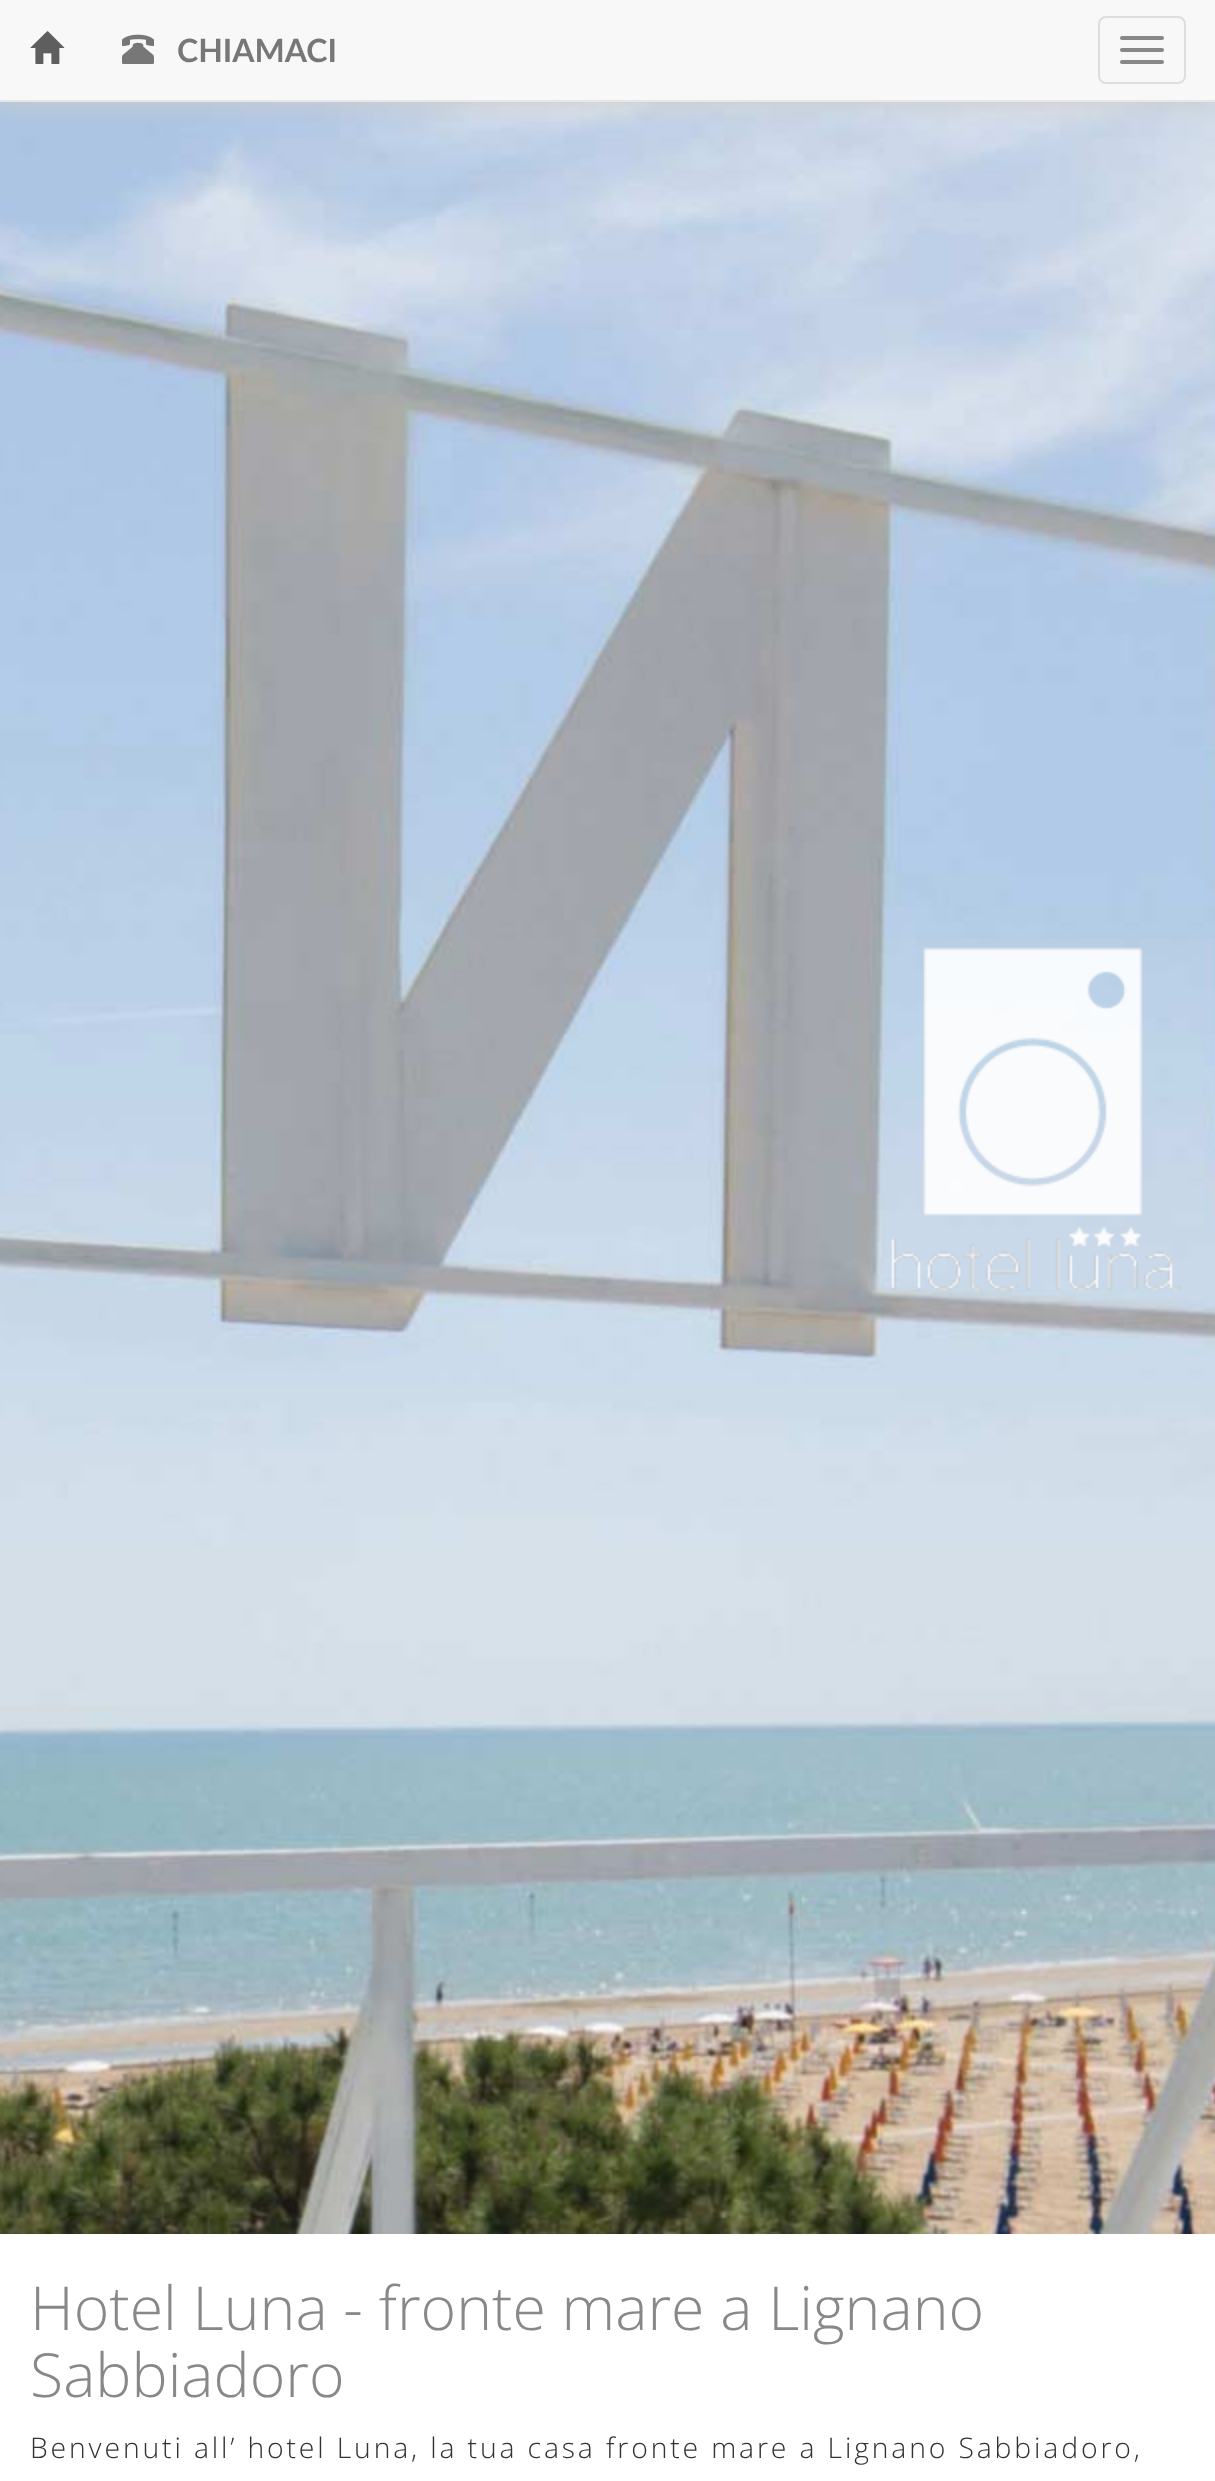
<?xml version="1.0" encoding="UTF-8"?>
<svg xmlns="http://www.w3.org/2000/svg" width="1215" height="2481">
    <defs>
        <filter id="blur1" x="-50%" y="-200%" width="200%" height="500%"><feGaussianBlur stdDeviation="12"/></filter>
    </defs>
    <rect width="100%" height="100%" fill="#FFFFFF"/>
    <image x="0" y="102" width="1215" height="2132" href="img_03.png"/>
    <rect x="0" y="2" width="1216" height="102" fill="#CCCCCC" filter="url(#blur1)"/>
    <rect x="0" y="0" width="1215" height="100" fill="#F8F8F8"/>
    <rect x="0" y="100" width="1215" height="2" fill="#E7E7E7"/>
    <image x="30" y="31" width="35" height="33" href="img_01.png"/>
    <image x="122" y="34" width="32" height="30" href="img_02.png"/>
    <text x="177" y="62" font-family="Lato" font-size="32" font-weight="700" fill="#777777">CHIAMACI</text>
    <rect x="1099" y="17" width="86" height="66" rx="7" fill="none" stroke="#DDDDDD" stroke-width="2"/>
    <rect x="1120" y="36" width="44" height="4" rx="2" fill="#888888"/>
    <rect x="1120" y="48" width="44" height="4" rx="2" fill="#888888"/>
    <rect x="1120" y="60" width="44" height="4" rx="2" fill="#888888"/>
    <image x="891" y="947" width="290" height="344" href="img_04.png"/>
    <text font-family="Open Sans" font-size="60.75" font-weight="300" fill="#888888">
        <tspan x="30" y="2330">Hotel Luna - fronte mare a Lignano</tspan>
        <tspan x="30" y="2397">Sabbiadoro</tspan>
    </text>
    <text x="30" y="2458" font-family="Open Sans" font-size="28.35" font-weight="300" letter-spacing="2.85" fill="#333333">Benvenuti all’ hotel Luna, la tua casa fronte mare a Lignano Sabbiadoro,</text>
</svg>
